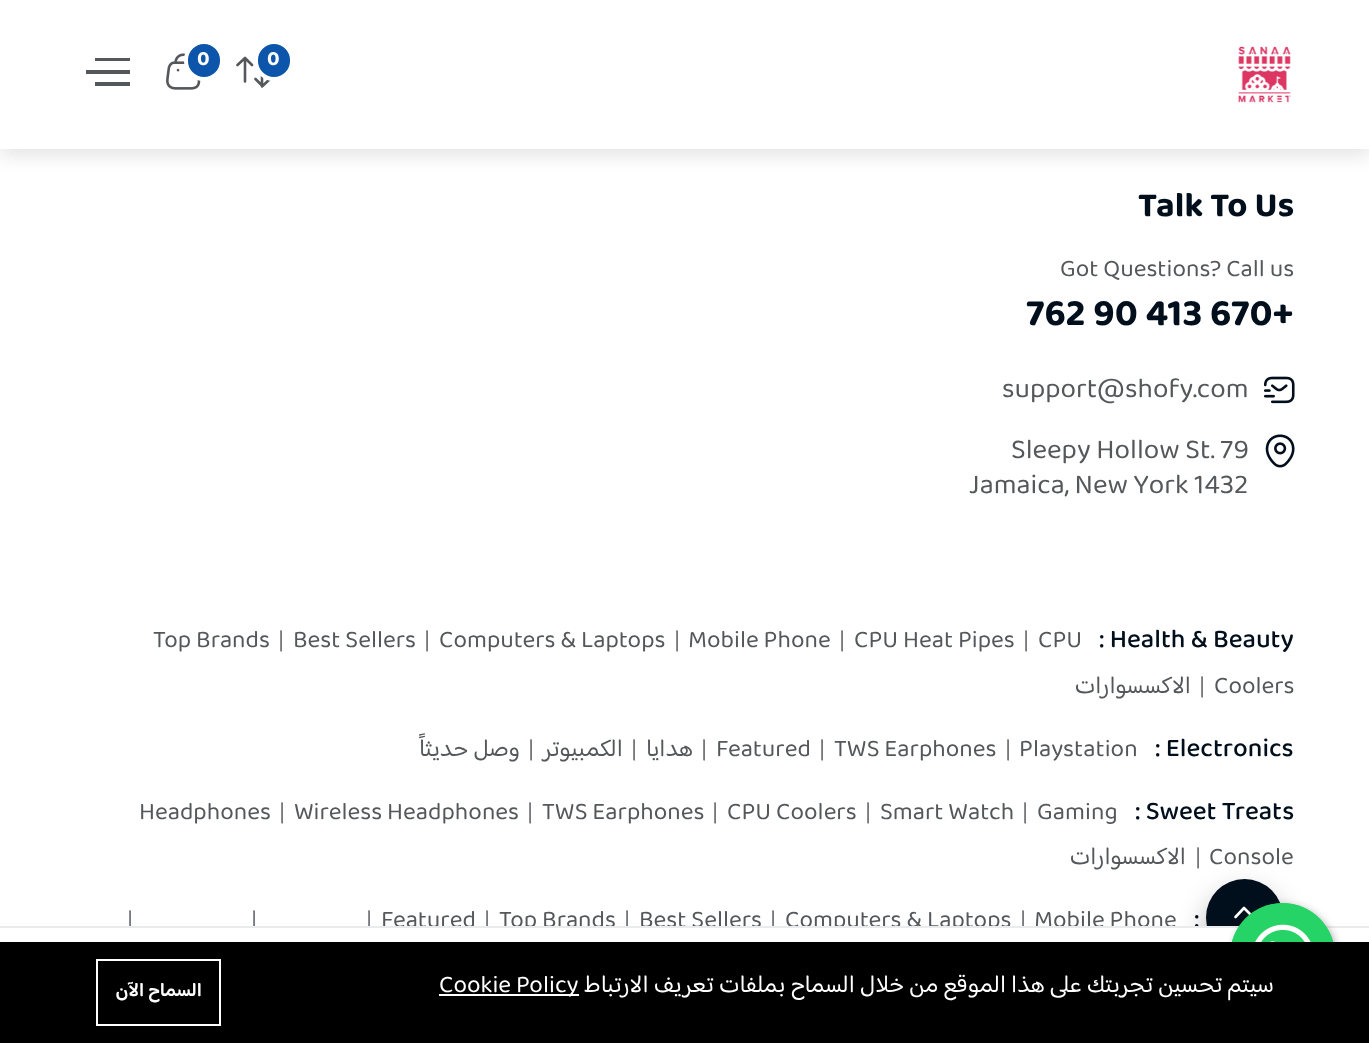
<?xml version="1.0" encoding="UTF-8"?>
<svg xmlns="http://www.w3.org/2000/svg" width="1369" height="1043">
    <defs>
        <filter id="blur1" x="-50%" y="-200%" width="200%" height="500%"><feGaussianBlur stdDeviation="9"/></filter>
        <filter id="blur2" x="-50%" y="-200%" width="200%" height="500%"><feGaussianBlur stdDeviation="14"/></filter>
        <filter id="blur3" x="-50%" y="-200%" width="200%" height="500%"><feGaussianBlur stdDeviation="3.5"/></filter>
    </defs>
    <rect width="100%" height="100%" fill="#FFFFFF"/>
    <rect x="0" y="7" width="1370" height="149" fill="#03041C" fill-opacity="0.1" filter="url(#blur1)"/>
    <rect x="0" y="0" width="1369" height="149" fill="#FFFFFF"/>
    <rect x="95" y="58" width="35" height="3" fill="#55585B"/>
    <rect x="86" y="70" width="44" height="4" fill="#55585B"/>
    <rect x="95" y="82" width="35" height="4" fill="#55585B"/>
    <image x="166" y="53" width="35" height="37" href="img_01.png"/>
    <rect x="186" y="42" width="36" height="37" rx="18" fill="#0C55AA" stroke="#FFFFFF" stroke-width="4"/>
    <text x="197" y="65" font-family="'Baloo Bhaijaan 2'" font-size="21" font-weight="700" fill="#FFFFFF">0</text>
    <path d="M 262 86.5 V 62.5 M 270 79 L 262.5 86 L 255.5 79 M 245 58 V 81.5 M 237.5 65 L 245 58 L 252 65" fill="none" stroke="#55585B" stroke-width="2.6" stroke-linecap="round" stroke-linejoin="round"/>
    <rect x="256" y="42" width="36" height="37" rx="18" fill="#0C55AA" stroke="#FFFFFF" stroke-width="4"/>
    <text x="267" y="65" font-family="'Baloo Bhaijaan 2'" font-size="21" font-weight="700" fill="#FFFFFF">0</text>
    <image x="1238" y="46" width="53" height="57" href="img_02.png"/>
    <text x="1138" y="216" font-family="'Baloo Bhaijaan 2'" font-size="35" font-weight="700" fill="#010F1C">Talk To Us</text>
    <text x="1060" y="276" font-family="'Baloo Bhaijaan 2'" font-size="24.5" fill="#55585B">Got Questions? Call us</text>
    <text x="1026" y="325" font-family="'Baloo Bhaijaan 2'" font-size="38.5" font-weight="700" fill="#010F1C">762 90 413 670+</text>
    <text x="1002" y="397" font-family="'Baloo Bhaijaan 2'" font-size="28" fill="#55585B">support@shofy.com</text>
    <image x="1264" y="376" width="31" height="28" href="img_03.png"/>
    <text x="1011" y="458" font-family="'Baloo Bhaijaan 2'" font-size="28" fill="#55585B">Sleepy Hollow St. 79</text>
    <text x="969" y="493" font-family="'Baloo Bhaijaan 2'" font-size="28" fill="#55585B">Jamaica, New York 1432</text>
    <image x="1265" y="434" width="30" height="34" href="img_04.png"/>
    <text x="153" y="647" font-family="'Baloo Bhaijaan 2'" font-size="24.5" fill="#55585B">Top Brands</text>
    <text x="278" y="647" font-family="'Baloo Bhaijaan 2'" font-size="24.5" fill="#747679">|</text>
    <text x="293" y="647" font-family="'Baloo Bhaijaan 2'" font-size="24.5" fill="#55585B">Best Sellers</text>
    <text x="424" y="647" font-family="'Baloo Bhaijaan 2'" font-size="24.5" fill="#747679">|</text>
    <text x="439" y="647" font-family="'Baloo Bhaijaan 2'" font-size="24.5" fill="#55585B">Computers &amp; Laptops</text>
    <text x="674" y="647" font-family="'Baloo Bhaijaan 2'" font-size="24.5" fill="#747679">|</text>
    <text x="688" y="647" font-family="'Baloo Bhaijaan 2'" font-size="24.5" fill="#55585B">Mobile Phone</text>
    <text x="839" y="647" font-family="'Baloo Bhaijaan 2'" font-size="24.5" fill="#747679">|</text>
    <text x="854" y="647" font-family="'Baloo Bhaijaan 2'" font-size="24.5" fill="#55585B">CPU Heat Pipes</text>
    <text x="1023" y="647" font-family="'Baloo Bhaijaan 2'" font-size="24.5" fill="#747679">|</text>
    <text x="1038" y="647" font-family="'Baloo Bhaijaan 2'" font-size="24.5" fill="#55585B">CPU</text>
    <text x="1099" y="647" font-family="'Baloo Bhaijaan 2'" font-size="26.25" font-weight="500" fill="#010F1C">: Health &amp; Beauty</text>
    <text x="1191" y="693" font-family="'Baloo Bhaijaan 2'" font-size="24.5" direction="rtl" fill="#55585B">الاكسسوارات</text>
    <text x="1199" y="693" font-family="'Baloo Bhaijaan 2'" font-size="24.5" fill="#747679">|</text>
    <text x="1214" y="693" font-family="'Baloo Bhaijaan 2'" font-size="24.5" fill="#55585B">Coolers</text>
    <text x="520" y="756" font-family="'Baloo Bhaijaan 2'" font-size="24.5" direction="rtl" fill="#55585B">وصل حديثاً</text>
    <text x="528" y="756" font-family="'Baloo Bhaijaan 2'" font-size="24.5" fill="#747679">|</text>
    <text x="623" y="756" font-family="'Baloo Bhaijaan 2'" font-size="24.5" direction="rtl" fill="#55585B">الكمبيوتر</text>
    <text x="631" y="756" font-family="'Baloo Bhaijaan 2'" font-size="24.5" fill="#747679">|</text>
    <text x="693" y="756" font-family="'Baloo Bhaijaan 2'" font-size="24.5" direction="rtl" fill="#55585B">هدايا</text>
    <text x="701" y="756" font-family="'Baloo Bhaijaan 2'" font-size="24.5" fill="#747679">|</text>
    <text x="716" y="756" font-family="'Baloo Bhaijaan 2'" font-size="24.5" fill="#55585B">Featured</text>
    <text x="819" y="756" font-family="'Baloo Bhaijaan 2'" font-size="24.5" fill="#747679">|</text>
    <text x="834" y="756" font-family="'Baloo Bhaijaan 2'" font-size="24.5" fill="#55585B">TWS Earphones</text>
    <text x="1005" y="756" font-family="'Baloo Bhaijaan 2'" font-size="24.5" fill="#747679">|</text>
    <text x="1019" y="756" font-family="'Baloo Bhaijaan 2'" font-size="24.5" fill="#55585B">Playstation</text>
    <text x="1155" y="756" font-family="'Baloo Bhaijaan 2'" font-size="26.25" font-weight="500" fill="#010F1C">: Electronics</text>
    <text x="139" y="819" font-family="'Baloo Bhaijaan 2'" font-size="24.5" fill="#55585B">Headphones</text>
    <text x="279" y="819" font-family="'Baloo Bhaijaan 2'" font-size="24.5" fill="#747679">|</text>
    <text x="294" y="819" font-family="'Baloo Bhaijaan 2'" font-size="24.5" fill="#55585B">Wireless Headphones</text>
    <text x="527" y="819" font-family="'Baloo Bhaijaan 2'" font-size="24.5" fill="#747679">|</text>
    <text x="542" y="819" font-family="'Baloo Bhaijaan 2'" font-size="24.5" fill="#55585B">TWS Earphones</text>
    <text x="712" y="819" font-family="'Baloo Bhaijaan 2'" font-size="24.5" fill="#747679">|</text>
    <text x="727" y="819" font-family="'Baloo Bhaijaan 2'" font-size="24.5" fill="#55585B">CPU Coolers</text>
    <text x="865" y="819" font-family="'Baloo Bhaijaan 2'" font-size="24.5" fill="#747679">|</text>
    <text x="880" y="819" font-family="'Baloo Bhaijaan 2'" font-size="24.5" fill="#55585B">Smart Watch</text>
    <text x="1022" y="819" font-family="'Baloo Bhaijaan 2'" font-size="24.5" fill="#747679">|</text>
    <text x="1037" y="819" font-family="'Baloo Bhaijaan 2'" font-size="24.5" fill="#55585B">Gaming</text>
    <text x="1135" y="819" font-family="'Baloo Bhaijaan 2'" font-size="26.25" font-weight="500" fill="#010F1C">: Sweet Treats</text>
    <text x="1186" y="864" font-family="'Baloo Bhaijaan 2'" font-size="24.5" direction="rtl" fill="#55585B">الاكسسوارات</text>
    <text x="1195" y="864" font-family="'Baloo Bhaijaan 2'" font-size="24.5" fill="#747679">|</text>
    <text x="1209" y="864" font-family="'Baloo Bhaijaan 2'" font-size="24.5" fill="#55585B">Console</text>
    <text x="127" y="927" font-family="'Baloo Bhaijaan 2'" font-size="24.5" fill="#747679">|</text>
    <text x="251" y="927" font-family="'Baloo Bhaijaan 2'" font-size="24.5" fill="#747679">|</text>
    <text x="366" y="927" font-family="'Baloo Bhaijaan 2'" font-size="24.5" fill="#747679">|</text>
    <text x="381" y="927" font-family="'Baloo Bhaijaan 2'" font-size="24.5" fill="#55585B">Featured</text>
    <text x="484" y="927" font-family="'Baloo Bhaijaan 2'" font-size="24.5" fill="#747679">|</text>
    <text x="499" y="927" font-family="'Baloo Bhaijaan 2'" font-size="24.5" fill="#55585B">Top Brands</text>
    <text x="624" y="927" font-family="'Baloo Bhaijaan 2'" font-size="24.5" fill="#747679">|</text>
    <text x="639" y="927" font-family="'Baloo Bhaijaan 2'" font-size="24.5" fill="#55585B">Best Sellers</text>
    <text x="770" y="927" font-family="'Baloo Bhaijaan 2'" font-size="24.5" fill="#747679">|</text>
    <text x="785" y="927" font-family="'Baloo Bhaijaan 2'" font-size="24.5" fill="#55585B">Computers &amp; Laptops</text>
    <text x="1020" y="927" font-family="'Baloo Bhaijaan 2'" font-size="24.5" fill="#747679">|</text>
    <text x="1034" y="927" font-family="'Baloo Bhaijaan 2'" font-size="24.5" fill="#55585B">Mobile Phone</text>
    <text x="1194" y="927" font-family="'Baloo Bhaijaan 2'" font-size="26.25" font-weight="500" fill="#010F1C">:</text>
    <rect x="1206" y="893" width="77" height="77" rx="38.5" fill="#03041C" fill-opacity="0.3" filter="url(#blur2)"/>
    <circle cx="1244.5" cy="917.5" r="38.5" fill="#010F1C"/>
    <path d="M 1253 917 L 1244 908 L 1235.5 917" fill="none" stroke="#FFFFFF" stroke-width="2.6" stroke-linecap="round" stroke-linejoin="round"/>
    <rect x="129" y="928" width="1177" height="14" fill="#FFFFFF"/>
    <rect x="0" y="926" width="1369" height="2" fill="#EAEBED"/>
    <rect x="1232" y="905" width="105" height="105" rx="52.5" fill="#3C3C3C" fill-opacity="0.4" filter="url(#blur3)"/>
    <circle cx="1282.5" cy="955.5" r="52.5" fill="#25D366"/>
    <image x="1232" y="903" width="101" height="39" href="img_05.png"/>
    <rect x="0" y="942" width="1369" height="101" fill="#000000"/>
    <rect x="97" y="960" width="123" height="65" fill="none" stroke="#FFFFFF" stroke-width="2"/>
    <text x="202" y="996" font-family="'Baloo Bhaijaan 2'" font-size="19.25" font-weight="600" direction="rtl" fill="#FFFFFF">السماح الآن</text>
    <rect x="439" y="994" width="140" height="2" fill="#FFFFFF"/>
    <text x="439" y="992" font-family="'Baloo Bhaijaan 2'" font-size="24.5" fill="#FFFFFF">Cookie Policy</text>
    <text x="1274" y="992" font-family="'Baloo Bhaijaan 2'" font-size="24.5" direction="rtl" fill="#FFFFFF">سيتم تحسين تجربتك على هذا الموقع من خلال السماح بملفات تعريف الارتباط</text>
</svg>
